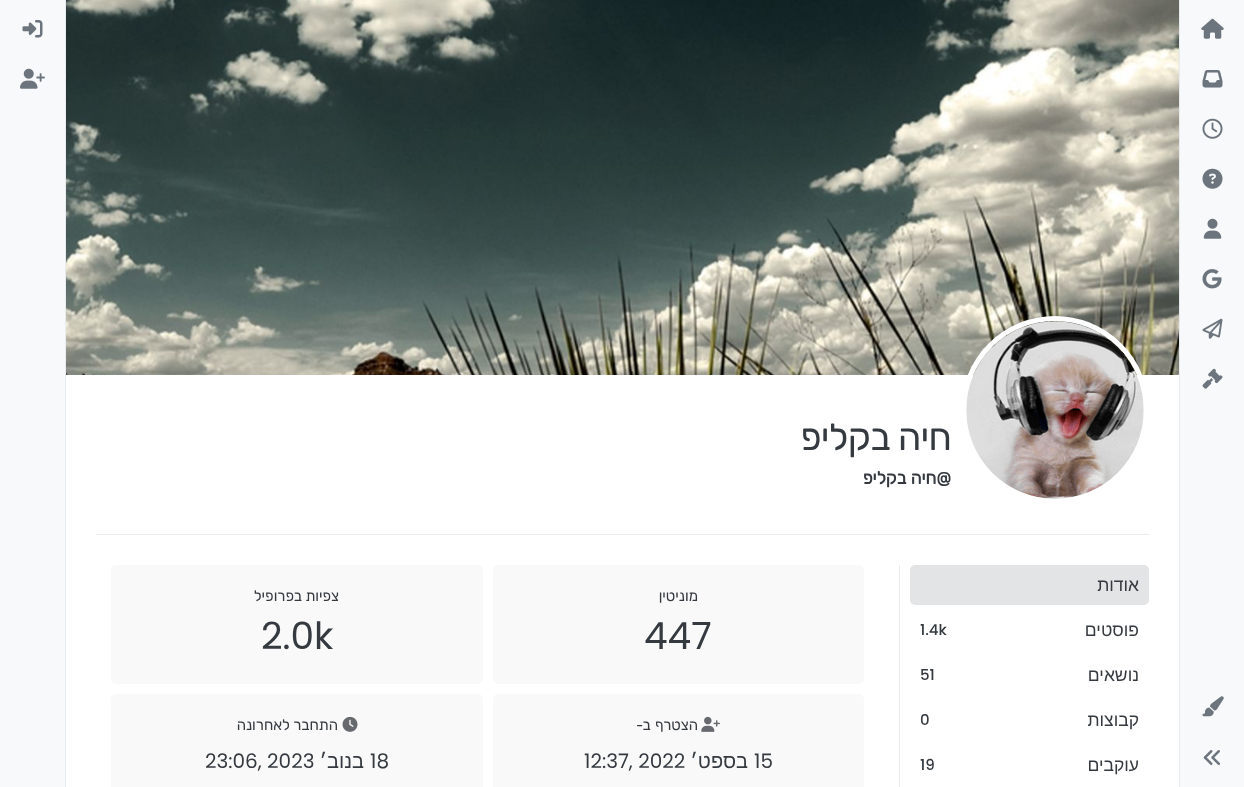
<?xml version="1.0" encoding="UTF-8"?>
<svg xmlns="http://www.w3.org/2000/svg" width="1244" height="787">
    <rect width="100%" height="100%" fill="#FFFFFF"/>
    <rect x="1180" y="0" width="64" height="787" fill="#F8F9FA"/>
    <rect x="1179" y="0" width="1" height="787" fill="#E9ECEF"/>
    <image x="1201" y="18" width="23" height="21" href="img_01.png"/>
    <image x="1202" y="70" width="21" height="18" href="img_02.png"/>
    <image x="1202" y="118" width="21" height="21" href="img_03.png"/>
    <image x="1202" y="168" width="21" height="21" href="img_04.png"/>
    <image x="1203" y="218" width="19" height="21" href="img_05.png"/>
    <image x="1202" y="269" width="20" height="20" href="img_06.png"/>
    <image x="1202" y="318" width="21" height="21" href="img_07.png"/>
    <image x="1202" y="368" width="21" height="21" href="img_08.png"/>
    <image x="1202" y="696" width="22" height="21" href="img_09.png"/>
    <image x="1203" y="750" width="17" height="15" href="img_10.png"/>
    <image x="66" y="0" width="1113" height="375" href="img_11.png"/>
    <rect x="96" y="534" width="1053" height="1" fill="#E9ECEF"/>
    <circle cx="1055" cy="410" r="91.5" fill="none" stroke="#FFFFFF" stroke-width="5"/>
    <image x="966" y="321" width="178" height="178" href="img_12.png"/>
    <text x="951" y="450" font-family="Rubik" font-size="37.5" font-weight="300" letter-spacing="-0.75" direction="rtl" fill="#343A40">חיה בקליפ</text>
    <text x="951" y="484" font-family="Rubik" font-size="17.5" font-weight="700" direction="rtl" fill="#343A40">@חיה בקליפ</text>
    <rect x="899" y="565" width="1" height="222" fill="#E9ECEF"/>
    <rect x="910" y="565" width="239" height="40" rx="5" fill="#E3E4E5"/>
    <text x="1139" y="591" font-family="Liberation Sans" font-size="17.5" direction="rtl" fill="#343A40">אודות</text>
    <text x="1139" y="636" font-family="Liberation Sans" font-size="17.5" direction="rtl" fill="#343A40">פוסטים</text>
    <text x="920" y="635" font-family="Poppins" font-size="15" font-weight="500" fill="#343A40">1.4k</text>
    <text x="1139" y="681" font-family="Liberation Sans" font-size="17.5" direction="rtl" fill="#343A40">נושאים</text>
    <text x="920" y="680" font-family="Poppins" font-size="15" font-weight="500" fill="#343A40">51</text>
    <text x="1139" y="726" font-family="Liberation Sans" font-size="17.5" direction="rtl" fill="#343A40">קבוצות</text>
    <text x="920" y="725" font-family="Poppins" font-size="15" font-weight="500" fill="#343A40">0</text>
    <text x="1139" y="771" font-family="Liberation Sans" font-size="17.5" direction="rtl" fill="#343A40">עוקבים</text>
    <text x="920" y="770" font-family="Poppins" font-size="15" font-weight="500" fill="#343A40">19</text>
    <rect x="493" y="565" width="371" height="119" rx="5" fill="#F9F9F9"/>
    <text x="698" y="601" font-family="Rubik" font-size="15" font-weight="300" direction="rtl" fill="#343A40">מוניטין</text>
    <text x="644" y="649" font-family="Poppins" font-size="37.5" fill="#343A40">447</text>
    <rect x="111" y="565" width="372" height="119" rx="5" fill="#F9F9F9"/>
    <text x="339" y="601" font-family="Rubik" font-size="15" font-weight="300" direction="rtl" fill="#343A40">צפיות בפרופיל</text>
    <text x="261" y="649" font-family="Poppins" font-size="37.5" fill="#343A40">2.0k</text>
    <rect x="493" y="694" width="371" height="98" rx="5" fill="#F9F9F9"/>
    <image x="701" y="716" width="19" height="16" href="img_13.png"/>
    <text x="698" y="730" word-spacing="1" font-family="Rubik" font-size="15" font-weight="300" direction="rtl" fill="#343A40">הצטרף ב-</text>
    <text x="754" y="768" font-family="Poppins" font-size="20" fill="#343A40">15</text>
    <text x="748" y="768" font-family="Liberation Sans" font-size="20" direction="rtl" fill="#343A40">בספט׳</text>
    <text x="584" y="768" font-family="Poppins" font-size="20" fill="#343A40">12:37, 2022</text>
    <rect x="111" y="694" width="372" height="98" rx="5" fill="#F9F9F9"/>
    <image x="342" y="716" width="16" height="16" href="img_14.png"/>
    <text x="338" y="730" font-family="Rubik" font-size="15" font-weight="300" direction="rtl" fill="#343A40">התחבר לאחרונה</text>
    <text x="370" y="768" font-family="Poppins" font-size="20" fill="#343A40">18</text>
    <text x="364" y="768" font-family="Liberation Sans" font-size="20" direction="rtl" fill="#343A40">בנוב׳</text>
    <text x="205" y="768" font-family="Poppins" font-size="20" fill="#343A40">23:06, 2023</text>
    <rect x="0" y="0" width="65" height="787" fill="#F8F9FA"/>
    <rect x="65" y="0" width="1" height="787" fill="#E9ECEF"/>
    <image x="22" y="20" width="21" height="18" href="img_15.png"/>
    <image x="20" y="68" width="25" height="21" href="img_16.png"/>
</svg>
